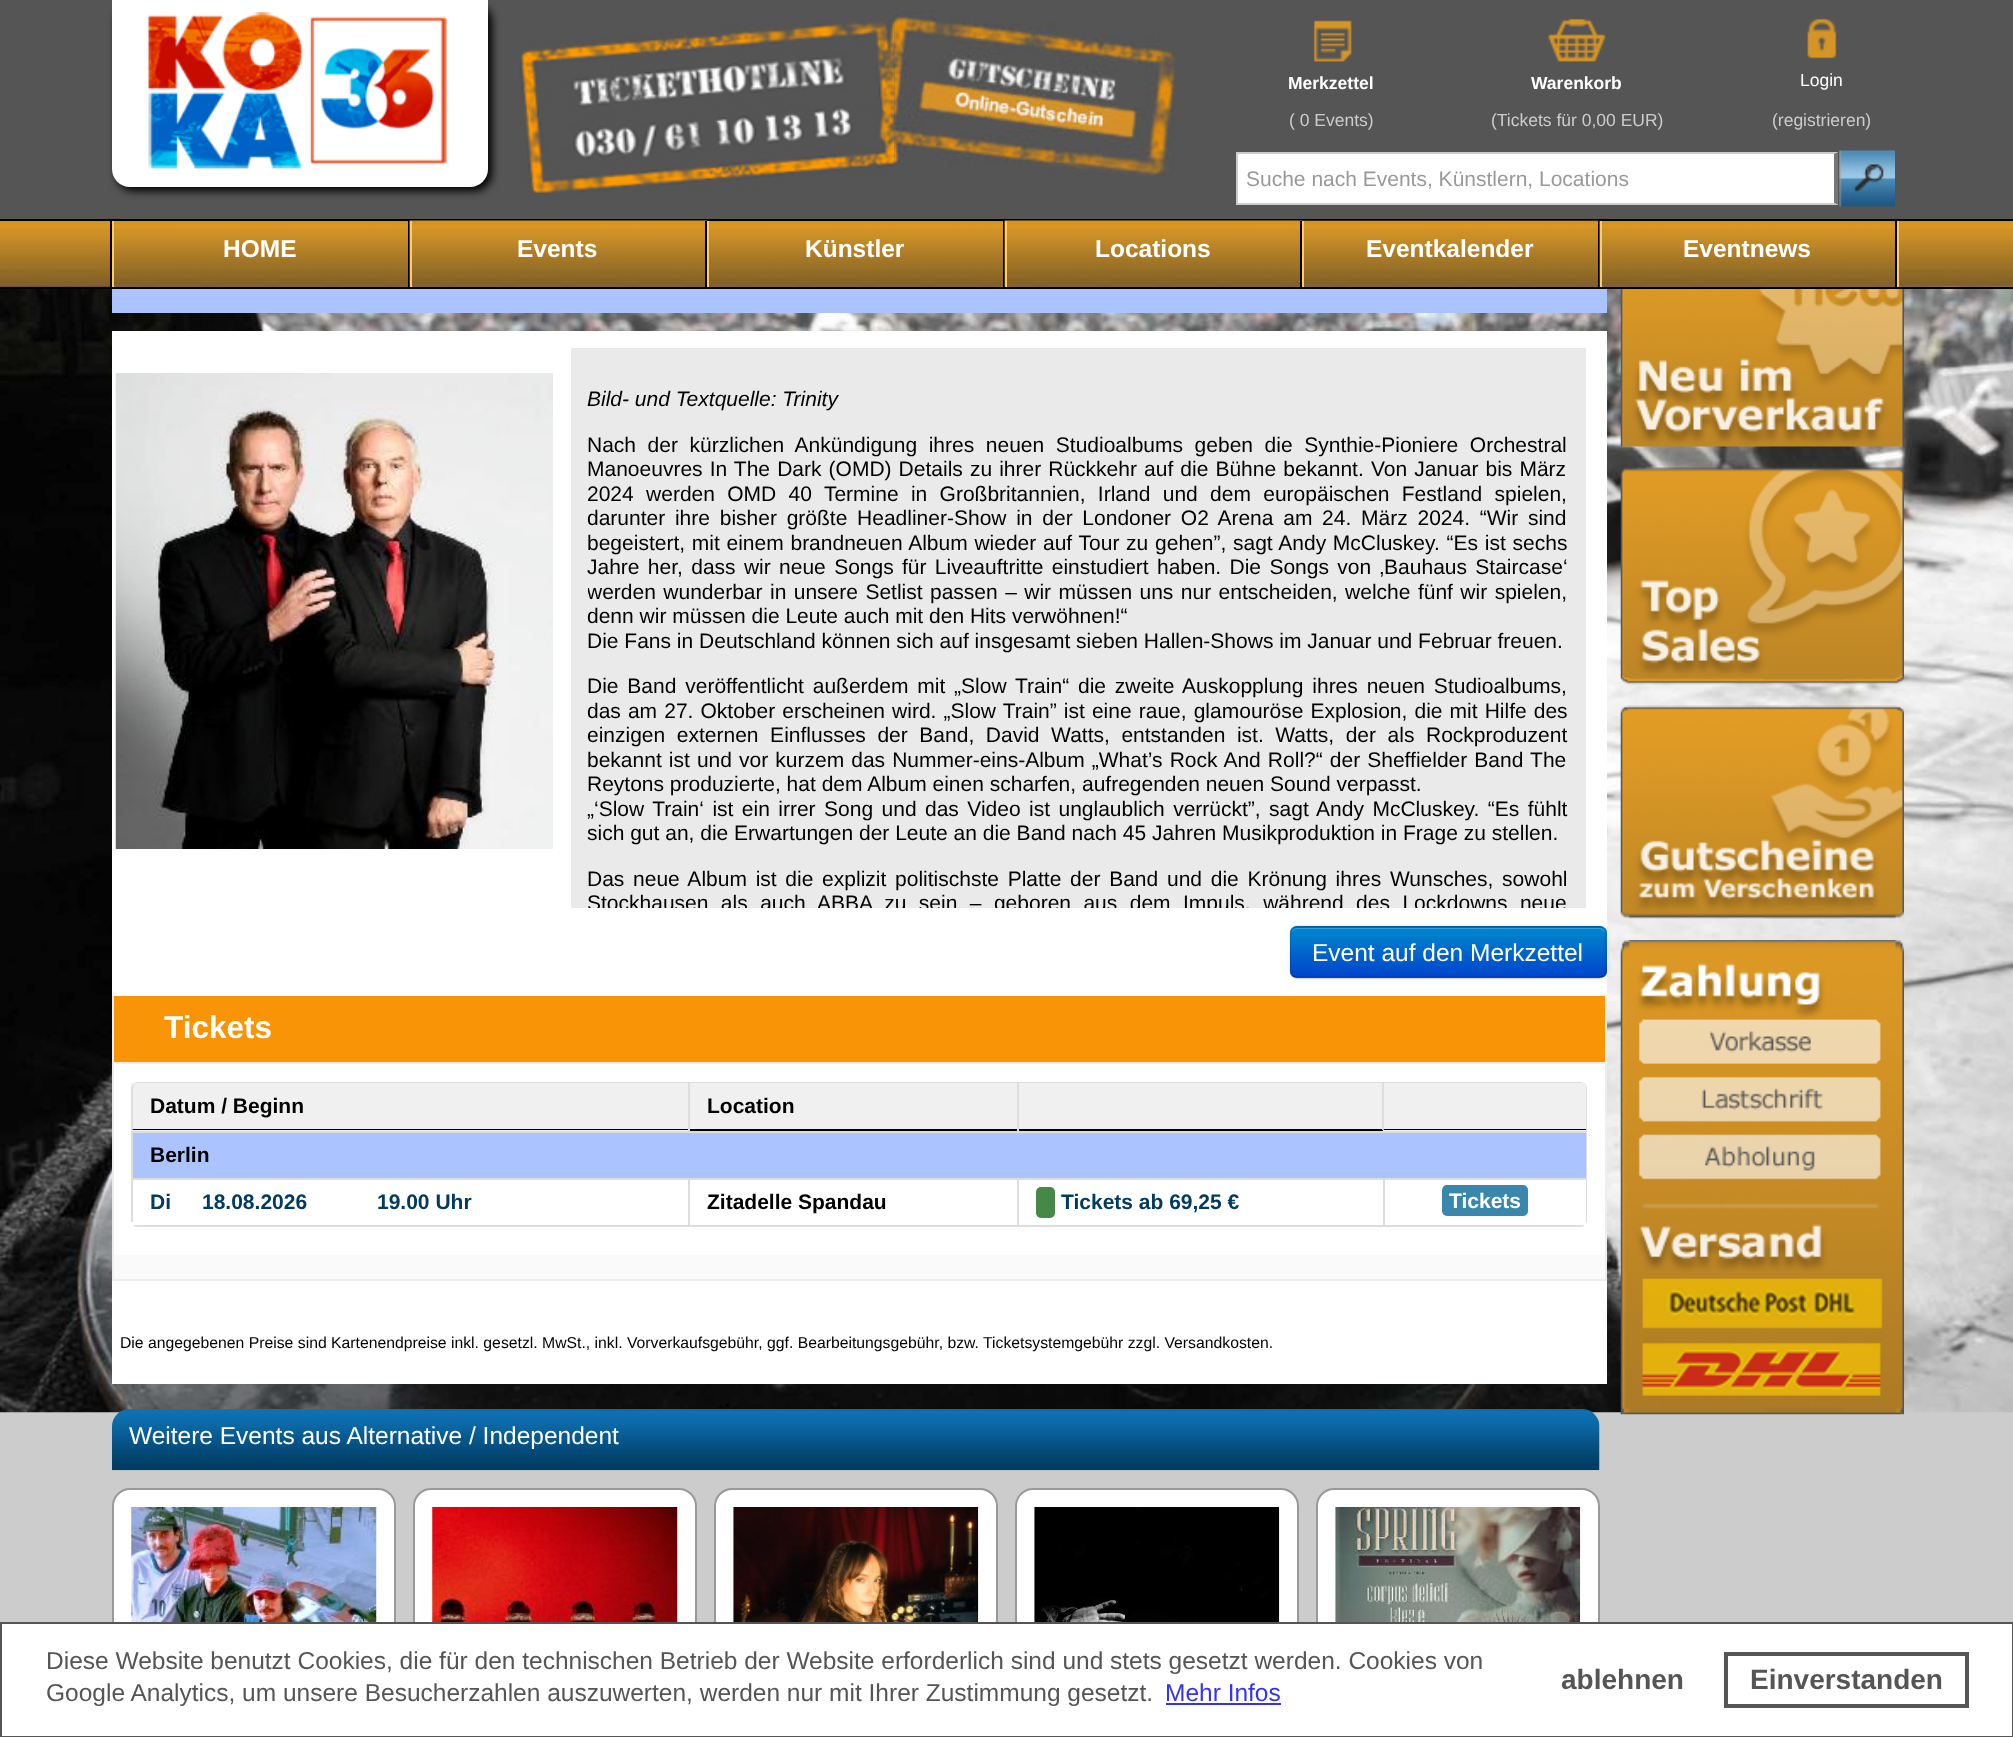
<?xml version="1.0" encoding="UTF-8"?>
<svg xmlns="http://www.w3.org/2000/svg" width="2013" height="1737">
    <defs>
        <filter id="blur1" x="-50%" y="-200%" width="200%" height="500%"><feGaussianBlur stdDeviation="4.5"/></filter>
        <clipPath id="clip1"><rect x="588" y="366" width="980" height="542"/></clipPath>
        <filter id="blur2" x="-50%" y="-200%" width="200%" height="500%"><feGaussianBlur stdDeviation="2"/></filter>
        <clipPath id="clip2"><rect x="1290" y="926" width="317" height="52" rx="7"/></clipPath>
        <linearGradient id="g1" gradientUnits="userSpaceOnUse" x1="1448" y1="928" x2="1448" y2="977"><stop offset="0" stop-color="#0088CC"/><stop offset="1" stop-color="#0044CC"/></linearGradient>
    </defs>
    <rect width="100%" height="100%" fill="#CCCCCC"/>
    <image x="0" y="286" width="2013" height="1127" href="img_01.png"/>
    <rect x="0" y="0" width="2013" height="219" fill="#555555"/>
    <rect x="116" y="4" width="376" height="187" rx="18" fill="#000000" filter="url(#blur1)"/>
    <path d="M 112 0 H 488 V 169 C 488 179 480 187 470 187 H 130 C 120 187 112 179 112 169 Z" fill="#FFFFFF"/>
    <image x="148" y="12" width="299" height="157" href="img_02.png"/>
    <image x="519" y="20" width="376" height="173" href="img_03.png"/>
    <image x="894" y="9" width="281" height="168" href="img_04.png"/>
    <image x="1313" y="20" width="39" height="42" href="img_05.png"/>
    <text x="1288" y="89" font-family="Liberation Sans" font-size="17.5" font-weight="700" fill="#FFFFFF">Merkzettel</text>
    <text x="1289" y="126" font-family="Liberation Sans" font-size="17.5" fill="#CCCCCC">( 0 Events)</text>
    <image x="1548" y="18" width="58" height="44" href="img_06.png"/>
    <text x="1531" y="89" font-family="Liberation Sans" font-size="17.5" font-weight="700" fill="#FFFFFF">Warenkorb</text>
    <text x="1491" y="126" font-family="Liberation Sans" font-size="17.5" fill="#CCCCCC">(Tickets für 0,00 EUR)</text>
    <image x="1807" y="18" width="30" height="41" href="img_07.png"/>
    <text x="1800" y="86" font-family="Liberation Sans" font-size="17.5" fill="#FFFFFF">Login</text>
    <text x="1772" y="126" font-family="Liberation Sans" font-size="17.5" fill="#CCCCCC">(registrieren)</text>
    <rect x="1238" y="152" width="600" height="53" fill="#FFFFFF"/>
    <path d="M 1236 152 H 1838 L 1834 154 H 1237 Z" fill="#CCCCCC"/>
    <path d="M 1838 152 V 205 L 1834 203 V 154 Z" fill="#767676"/>
    <path d="M 1838 205 H 1236 L 1237 203 H 1834 Z" fill="#CCCCCC"/>
    <rect x="1236" y="152" width="2" height="53" fill="#CCCCCC"/>
    <text x="1246" y="186" font-family="Liberation Sans" font-size="21" fill="#999999">Suche nach Events, Künstlern, Locations</text>
    <image x="1839" y="150" width="56" height="57" href="img_08.png"/>
    <image x="1620" y="286" width="284" height="161" href="img_23.png"/>
    <image x="0" y="221" width="2013" height="66" href="img_09.png"/>
    <rect x="0" y="219" width="2013" height="2" fill="#000000"/>
    <rect x="0" y="287" width="2013" height="2" fill="#000000"/>
    <rect x="110" y="221" width="2" height="66" fill="#000000"/>
    <image x="114" y="221" width="294" height="66" href="img_10.png"/>
    <rect x="408" y="221" width="2" height="66" fill="#000000"/>
    <rect x="112" y="221" width="2" height="66" fill="#FFCC66"/>
    <text x="223" y="257" font-family="Liberation Sans" font-size="24.5" font-weight="700" fill="#FFFFFF">HOME</text>
    <image x="409" y="220" width="298" height="67" href="img_11.png"/>
    <rect x="705" y="221" width="2" height="66" fill="#000000"/>
    <rect x="410" y="221" width="2" height="66" fill="#FFCC66"/>
    <text x="517" y="257" font-family="Liberation Sans" font-size="24.5" font-weight="700" fill="#FFFFFF">Events</text>
    <image x="709" y="221" width="294" height="66" href="img_12.png"/>
    <rect x="1003" y="221" width="2" height="66" fill="#000000"/>
    <rect x="707" y="221" width="2" height="66" fill="#FFCC66"/>
    <text x="805" y="257" font-family="Liberation Sans" font-size="24.5" font-weight="700" fill="#FFFFFF">Künstler</text>
    <image x="1004" y="220" width="298" height="67" href="img_13.png"/>
    <rect x="1300" y="221" width="2" height="66" fill="#000000"/>
    <rect x="1005" y="221" width="2" height="66" fill="#FFCC66"/>
    <text x="1095" y="257" font-family="Liberation Sans" font-size="24.5" font-weight="700" fill="#FFFFFF">Locations</text>
    <image x="1302" y="220" width="298" height="67" href="img_14.png"/>
    <rect x="1598" y="221" width="2" height="66" fill="#000000"/>
    <rect x="1302" y="221" width="2" height="66" fill="#FFCC66"/>
    <text x="1366" y="257" font-family="Liberation Sans" font-size="24.5" font-weight="700" fill="#FFFFFF">Eventkalender</text>
    <image x="1599" y="221" width="296" height="66" href="img_15.png"/>
    <rect x="1895" y="221" width="2" height="66" fill="#000000"/>
    <rect x="1600" y="221" width="2" height="66" fill="#FFCC66"/>
    <text x="1683" y="257" font-family="Liberation Sans" font-size="24.5" font-weight="700" fill="#FFFFFF">Eventnews</text>
    <rect x="1897" y="221" width="2" height="66" fill="#FFCC66"/>
    <rect x="112" y="289" width="1495" height="24" fill="#ABC4FF"/>
    <rect x="112" y="331" width="1495" height="665" fill="#FFFFFF"/>
    <image x="115" y="373" width="438" height="476" href="img_16.png"/>
    <rect x="571" y="348" width="1015" height="560" fill="#EAEAEA"/>
    <text x="587" y="406" font-family="Liberation Sans" font-size="21" font-style="italic" fill="#000000">Bild- und Textquelle: Trinity</text>
    <text font-family="Liberation Sans" font-size="21" fill="#000000">
        <tspan x="587" y="452" word-spacing="5.75">Nach der kürzlichen Ankündigung ihres neuen Studioalbums geben die Synthie-Pioniere Orchestral</tspan>
        <tspan x="587" y="476" word-spacing="1.25">Manoeuvres In The Dark (OMD) Details zu ihrer Rückkehr auf die Bühne bekannt. Von Januar bis März</tspan>
        <tspan x="587" y="501" word-spacing="6.5">2024 werden OMD 40 Termine in Großbritannien, Irland und dem europäischen Festland spielen,</tspan>
        <tspan x="587" y="525" word-spacing="3.9">darunter ihre bisher größte Headliner-Show in der Londoner O2 Arena am 24. März 2024. “Wir sind</tspan>
        <tspan x="587" y="550" word-spacing="0.9">begeistert, mit einem brandneuen Album wieder auf Tour zu gehen”, sagt Andy McCluskey. “Es ist sechs</tspan>
        <tspan x="587" y="574" word-spacing="2.5">Jahre her, dass wir neue Songs für Liveauftritte einstudiert haben. Die Songs von ‚Bauhaus Staircase‘</tspan>
    </text>
    <g clip-path="url(#clip1)">
        <text x="587" y="599" word-spacing="1.6" font-family="Liberation Sans" font-size="21" fill="#000000">werden wunderbar in unsere Setlist passen – wir müssen uns nur entscheiden, welche fünf wir spielen,</text>
    </g>
    <text font-family="Liberation Sans" font-size="21" fill="#000000">
        <tspan x="587" y="623">denn wir müssen die Leute auch mit den Hits verwöhnen!“</tspan>
        <tspan x="587" y="648">Die Fans in Deutschland können sich auf insgesamt sieben Hallen-Shows im Januar und Februar freuen.</tspan>
    </text>
    <text font-family="Liberation Sans" font-size="21" fill="#000000">
        <tspan x="587" y="693" word-spacing="3">Die Band veröffentlicht außerdem mit „Slow Train“ die zweite Auskopplung ihres neuen Studioalbums,</tspan>
        <tspan x="587" y="718" word-spacing="1.25">das am 27. Oktober erscheinen wird. „Slow Train” ist eine raue, glamouröse Explosion, die mit Hilfe des</tspan>
        <tspan x="587" y="742" word-spacing="5.75">einzigen externen Einflusses der Band, David Watts, entstanden ist. Watts, der als Rockproduzent</tspan>
        <tspan x="587" y="767" word-spacing="1.25">bekannt ist und vor kurzem das Nummer-eins-Album „What’s Rock And Roll?“ der Sheffielder Band The</tspan>
        <tspan x="587" y="791">Reytons produzierte, hat dem Album einen scharfen, aufregenden neuen Sound verpasst.</tspan>
        <tspan x="587" y="816" word-spacing="2.6">„‘Slow Train‘ ist ein irrer Song und das Video ist unglaublich verrückt”, sagt Andy McCluskey. “Es fühlt</tspan>
        <tspan x="587" y="840">sich gut an, die Erwartungen der Leute an die Band nach 45 Jahren Musikproduktion in Frage zu stellen.</tspan>
    </text>
    <text x="587" y="886" word-spacing="2.9" font-family="Liberation Sans" font-size="21" fill="#000000">Das neue Album ist die explizit politischste Platte der Band und die Krönung ihres Wunsches, sowohl</text>
    <g clip-path="url(#clip1)">
        <text x="587" y="910" word-spacing="6.6" font-family="Liberation Sans" font-size="21" fill="#000000">Stockhausen als auch ABBA zu sein – geboren aus dem Impuls, während des Lockdowns neue</text>
    </g>
    <rect x="1290" y="928" width="317" height="52" rx="7" fill="#000000" fill-opacity="0.05" filter="url(#blur2)"/>
    <rect x="1290" y="926" width="317" height="52" rx="7" fill="#006DCC"/>
    <g clip-path="url(#clip2)">
        <rect x="1290" y="928" width="317" height="49" fill="url(#g1)"/>
    </g>
    <path d="M 1297 929 H 1600 C 1602 929 1605 932 1605 934 C 1605 931 1603 928 1600 928 H 1297 C 1294 928 1292 931 1292 934 C 1292 932 1294 929 1297 929 Z" fill="#339FD6"/>
    <path d="M 1604 975.5 C 1602.5 976.5 1601 977.5 1599.5 977.5 H 1297 C 1295 977.5 1293.5 976.5 1292.5 975.5" fill="none" stroke="#000000" stroke-opacity="0.25" stroke-width="1.8"/>
    <path d="M 1292.5 975.5 C 1291.5 974.5 1290.5 973 1290.5 971 V 933 C 1290.5 931 1291.5 929.5 1292.5 928.5 C 1293.5 927.5 1295 926.5 1297 926.5 H 1599.5 C 1601 926.5 1602.5 927.5 1604 928.5 C 1605 929.5 1605.5 931 1605.5 933 V 971 C 1605.5 973 1605 974.5 1604 975.5" fill="none" stroke="#000000" stroke-opacity="0.1" stroke-width="1.8"/>
    <text x="1312" y="961" font-family="Liberation Sans" font-size="24.5" fill="#FFFFFF">Event auf den Merkzettel</text>
    <rect x="112" y="1281" width="1495" height="103" fill="#FFFFFF"/>
    <rect x="114" y="1255" width="1491" height="24" fill="#FAFAFA"/>
    <rect x="1605" y="996" width="2" height="285" fill="#EEEEEE"/>
    <rect x="112" y="1279" width="1495" height="2" fill="#EEEEEE"/>
    <rect x="112" y="996" width="2" height="285" fill="#EEEEEE"/>
    <rect x="114" y="996" width="1491" height="66" fill="#F89406"/>
    <rect x="114" y="1062" width="1491" height="2" fill="#EEEEEE"/>
    <text x="164" y="1038" font-family="Liberation Sans" font-size="31.5" font-weight="700" fill="#FFFFFF">Tickets</text>
    <rect x="114" y="1064" width="1491" height="191" fill="#FFFFFF"/>
    <path d="M 138 1082 H 1580 C 1584 1082 1587 1085 1587 1088 V 1220 C 1587 1224 1584 1227 1580 1227 H 138 C 134 1227 131 1224 131 1220 V 1088 C 131 1085 134 1082 138 1082 Z M 138 1083 H 1580 C 1583 1083 1586 1086 1586 1088 V 1220 C 1586 1223 1583 1225 1580 1225 H 138 C 134 1225 131 1223 131 1220 V 1088 C 131 1086 134 1083 138 1083 Z" fill="#DDDDDD" fill-rule="evenodd"/>
    <rect x="131" y="1083" width="1455" height="48" fill="#F0F0F0"/>
    <path d="M 688 1129 V 1130 H 132 L 133 1129 Z" fill="#000000"/>
    <path d="M 133 1129 L 131 1130 V 1088 C 132 1086 134 1084 136 1083 H 137 C 134 1084 133 1087 133 1090 Z" fill="#DDDDDD"/>
    <text x="150" y="1113" font-family="Liberation Sans" font-size="21" font-weight="700" fill="#000000">Datum / Beginn</text>
    <rect x="688" y="1129" width="695" height="2" fill="#000000"/>
    <rect x="688" y="1083" width="2" height="48" fill="#DDDDDD"/>
    <text x="707" y="1113" font-family="Liberation Sans" font-size="21" font-weight="700" fill="#000000">Location</text>
    <rect x="1017" y="1083" width="2" height="48" fill="#DDDDDD"/>
    <path d="M 1586 1130 H 1383 L 1384 1129 H 1586 Z" fill="#000000"/>
    <path d="M 1383 1130 H 1382 V 1083 H 1384 V 1129 Z" fill="#DDDDDD"/>
    <rect x="133" y="1133" width="1453" height="45" fill="#ABC4FF"/>
    <rect x="131" y="1131" width="1455" height="2" fill="#DDDDDD"/>
    <rect x="131" y="1131" width="2" height="47" fill="#DDDDDD"/>
    <text x="150" y="1162" font-family="Liberation Sans" font-size="21" font-weight="700" fill="#000000">Berlin</text>
    <rect x="131" y="1221" width="1455" height="4" fill="#FFFFFF"/>
    <rect x="131" y="1178" width="1455" height="2" fill="#DDDDDD"/>
    <rect x="131" y="1178" width="2" height="44" fill="#DDDDDD"/>
    <text x="150" y="1209" font-family="Liberation Sans" font-size="21" font-weight="700" fill="#013B62">Di</text>
    <text x="202" y="1209" font-family="Liberation Sans" font-size="21" font-weight="700" fill="#013B62">18.08.2026</text>
    <text x="377" y="1209" font-family="Liberation Sans" font-size="21" font-weight="700" fill="#013B62">19.00 Uhr</text>
    <rect x="688" y="1178" width="2" height="47" fill="#DDDDDD"/>
    <text x="707" y="1209" font-family="Liberation Sans" font-size="21" font-weight="700" fill="#000000">Zitadelle Spandau</text>
    <rect x="1017" y="1178" width="2" height="47" fill="#DDDDDD"/>
    <rect x="1036" y="1187" width="19" height="31" rx="5" fill="#468847"/>
    <text x="1061" y="1209" font-family="Liberation Sans" font-size="21" font-weight="700" fill="#013B62">Tickets ab 69,25 €</text>
    <rect x="1383" y="1178" width="2" height="47" fill="#DDDDDD"/>
    <rect x="1442" y="1185" width="86" height="31" rx="5" fill="#3A87AD"/>
    <text x="1449" y="1208" font-family="Liberation Sans" font-size="21" font-weight="700" fill="#FFFFFF">Tickets</text>
    <text x="120" y="1348" font-family="Liberation Sans" font-size="15.75" fill="#000000">Die angegebenen Preise sind Kartenendpreise inkl. gesetzl. MwSt., inkl. Vorverkaufsgebühr, ggf. Bearbeitungsgebühr, bzw. Ticketsystemgebühr zzgl. Versandkosten.</text>
    <image x="112" y="1409" width="1488" height="62" href="img_17.png"/>
    <text x="129" y="1444" font-family="Liberation Sans" font-size="24.5" fill="#FFFFFF">Weitere Events aus Alternative / Independent</text>
    <rect x="113" y="1489" width="282" height="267" rx="17" fill="#FFFFFF" stroke="#999999" stroke-width="2"/>
    <image x="131" y="1507" width="246" height="115" href="img_18.png"/>
    <rect x="414" y="1489" width="282" height="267" rx="17" fill="#FFFFFF" stroke="#999999" stroke-width="2"/>
    <image x="432" y="1507" width="246" height="115" href="img_19.png"/>
    <rect x="715" y="1489" width="282" height="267" rx="17" fill="#FFFFFF" stroke="#999999" stroke-width="2"/>
    <image x="733" y="1507" width="246" height="115" href="img_20.png"/>
    <rect x="1016" y="1489" width="282" height="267" rx="17" fill="#FFFFFF" stroke="#999999" stroke-width="2"/>
    <image x="1034" y="1507" width="246" height="115" href="img_21.png"/>
    <rect x="1317" y="1489" width="282" height="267" rx="17" fill="#FFFFFF" stroke="#999999" stroke-width="2"/>
    <image x="1335" y="1507" width="246" height="115" href="img_22.png"/>
    <image x="1620" y="467" width="284" height="218" href="img_24.png"/>
    <image x="1620" y="705" width="284" height="214" href="img_25.png"/>
    <image x="1620" y="940" width="284" height="475" href="img_26.png"/>
    <rect x="1" y="1623" width="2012" height="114" fill="#FFFFFF" stroke="#555555" stroke-width="2"/>
    <text font-family="Liberation Sans" font-size="24.5" fill="#555555">
        <tspan x="46" y="1669">Diese Website benutzt Cookies, die für den technischen Betrieb der Website erforderlich sind und stets gesetzt werden. Cookies von</tspan>
        <tspan x="46" y="1701">Google Analytics, um unsere Besucherzahlen auszuwerten, werden nur mit Ihrer Zustimmung gesetzt.</tspan>
    </text>
    <text x="1165" y="1701" font-family="Liberation Sans" font-size="24.5" fill="#3333F1">Mehr Infos</text>
    <rect x="1166" y="1703" width="115" height="2" fill="#3333F1"/>
    <text x="1561" y="1689" font-family="Liberation Sans" font-size="28" font-weight="700" fill="#555555">ablehnen</text>
    <rect x="1726" y="1654" width="241" height="52" fill="none" stroke="#555555" stroke-width="4"/>
    <text x="1750" y="1689" font-family="Liberation Sans" font-size="28" font-weight="700" fill="#555555">Einverstanden</text>
</svg>
